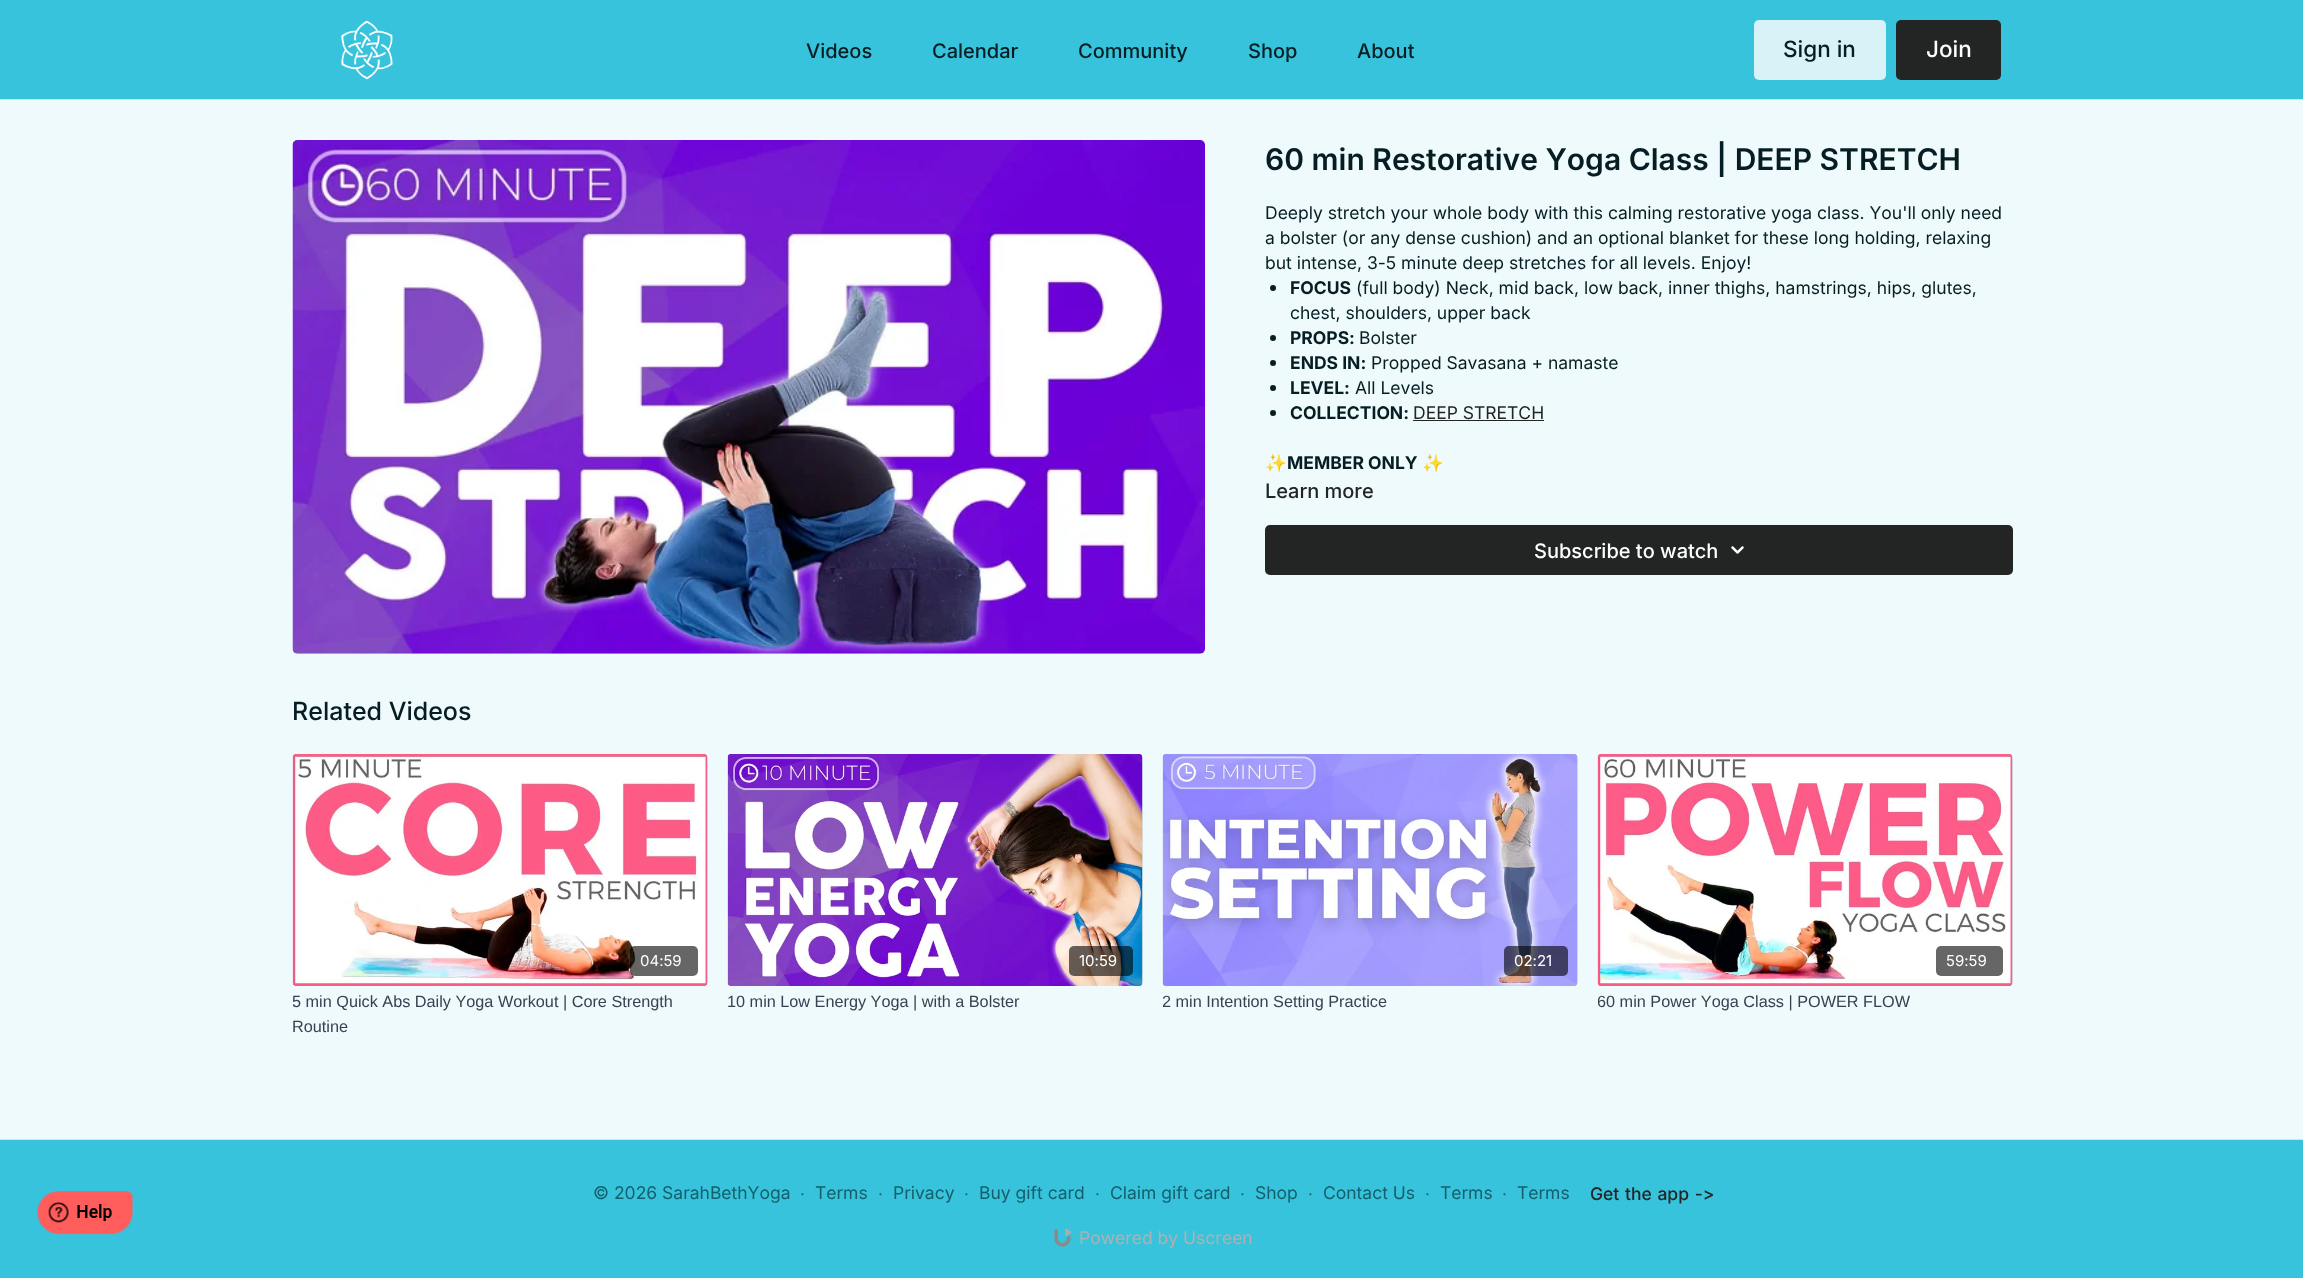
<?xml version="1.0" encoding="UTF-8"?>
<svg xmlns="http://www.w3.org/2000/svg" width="2303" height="1278">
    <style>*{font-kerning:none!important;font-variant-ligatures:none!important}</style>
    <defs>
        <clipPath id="clip1"><rect x="1265" y="200" width="748" height="275"/></clipPath>
        <linearGradient id="g1" gradientUnits="userSpaceOnUse" x1="293" y1="870" x2="708" y2="870"><stop offset="0.08" stop-color="#CFDADB"/><stop offset="0.18" stop-color="#D1DCDE"/><stop offset="0.33" stop-color="#D4DFE0"/></linearGradient>
        <clipPath id="clip2"><rect x="293" y="990" width="415" height="49"/></clipPath>
        <linearGradient id="g2" gradientUnits="userSpaceOnUse" x1="728" y1="870" x2="1143" y2="870"><stop offset="0.08" stop-color="#CFDADB"/><stop offset="0.18" stop-color="#D1DCDE"/><stop offset="0.33" stop-color="#D4DFE0"/></linearGradient>
        <linearGradient id="g3" gradientUnits="userSpaceOnUse" x1="1163" y1="870" x2="1578" y2="870"><stop offset="0.08" stop-color="#CFDADB"/><stop offset="0.18" stop-color="#D1DCDE"/><stop offset="0.33" stop-color="#D4DFE0"/></linearGradient>
        <clipPath id="clip3"><rect x="1163" y="990" width="415" height="24"/></clipPath>
        <linearGradient id="g4" gradientUnits="userSpaceOnUse" x1="1598" y1="870" x2="2013" y2="870"><stop offset="0.08" stop-color="#CFDADB"/><stop offset="0.18" stop-color="#D1DCDE"/><stop offset="0.33" stop-color="#D4DFE0"/></linearGradient>
        <clipPath id="clip4"><rect x="1598" y="990" width="415" height="24"/></clipPath>
    </defs>
    <rect width="100%" height="100%" fill="#EEFAFC"/>
    <rect x="0" y="0" width="2303" height="99" fill="#38C3DC"/>
    <rect x="0" y="99" width="2303" height="1" fill="#BEEBF4"/>
    <image x="341" y="20" width="52" height="60" href="img_01.png"/>
    <text x="806" y="58" font-family="Inter" font-size="20" font-weight="500" fill="#061E23">Videos</text>
    <text x="932" y="58" font-family="Inter" font-size="20" font-weight="500" fill="#061E23">Calendar</text>
    <text x="1078" y="58" font-family="Inter" font-size="20" font-weight="500" fill="#061E23">Community</text>
    <text x="1248" y="58" font-family="Inter" font-size="20" font-weight="500" fill="#061E23">Shop</text>
    <text x="1357" y="58" font-family="Inter" font-size="20" font-weight="500" fill="#061E23">About</text>
    <rect x="1754" y="20" width="132" height="60" rx="5" fill="#D8F3F8"/>
    <text x="1783" y="57" font-family="Inter" font-size="22.5" font-weight="500" fill="#061E23">Sign in</text>
    <rect x="1896" y="20" width="105" height="60" rx="5" fill="#232424"/>
    <text x="1926" y="57" font-family="Inter" font-size="22.5" font-weight="500" fill="#FFFFFF">Join</text>
    <image x="292" y="140" width="913" height="514" href="img_02.png"/>
    <text x="1265" y="170" font-family="Inter" font-size="30" font-weight="600" fill="#061E23">60 min Restorative Yoga Class | DEEP STRETCH</text>
    <text font-family="Inter" font-size="17.5" fill="#061E23">
        <tspan x="1265" y="219">Deeply stretch your whole body with this calming restorative yoga class. You'll only need</tspan>
        <tspan x="1265" y="244">a bolster (or any dense cushion) and an optional blanket for these long holding, relaxing</tspan>
        <tspan x="1265" y="269">but intense, 3-5 minute deep stretches for all levels. Enjoy!</tspan>
    </text>
    <circle cx="1273" cy="288" r="3" fill="#061E23"/>
    <text x="1290" y="294" font-family="Inter" font-size="17.5" font-weight="700" fill="#061E23">FOCUS</text>
    <text x="1356" y="294" font-family="Inter" font-size="17.5" fill="#061E23">(full body) Neck, mid back, low back, inner thighs, hamstrings, hips, glutes,</text>
    <text x="1290" y="319" font-family="Inter" font-size="17.5" fill="#061E23">chest, shoulders, upper back</text>
    <circle cx="1273" cy="338" r="3" fill="#061E23"/>
    <text x="1290" y="344" font-family="Inter" font-size="17.5" font-weight="700" fill="#061E23">PROPS:</text>
    <text x="1359" y="344" font-family="Inter" font-size="17.5" fill="#061E23">Bolster</text>
    <circle cx="1273" cy="363" r="3" fill="#061E23"/>
    <text x="1290" y="369" font-family="Inter" font-size="17.5" font-weight="700" fill="#061E23">ENDS IN:</text>
    <text x="1371" y="369" font-family="Inter" font-size="17.5" fill="#061E23">Propped Savasana + namaste</text>
    <circle cx="1273" cy="388" r="3" fill="#061E23"/>
    <text x="1290" y="394" font-family="Inter" font-size="17.5" font-weight="700" fill="#061E23">LEVEL:</text>
    <text x="1355" y="394" font-family="Inter" font-size="17.5" fill="#061E23">All Levels</text>
    <circle cx="1273" cy="413" r="3" fill="#061E23"/>
    <text x="1290" y="419" font-family="Inter" font-size="17.5" font-weight="700" fill="#061E23">COLLECTION:</text>
    <text x="1413" y="419" font-family="Inter" font-size="17.5" fill="#232424">DEEP STRETCH</text>
    <rect x="1413" y="420" width="131" height="1" fill="#232424"/>
    <g clip-path="url(#clip1)">
        <text x="1265" y="469" font-family="Noto Color Emoji" font-size="17.5" fill="#061E23">✨</text>
    </g>
    <text x="1287" y="469" font-family="Inter" font-size="17.5" font-weight="700" fill="#061E23">MEMBER ONLY</text>
    <text x="1422" y="469" font-family="Noto Color Emoji" font-size="17.5" fill="#061E23">✨</text>
    <text x="1265" y="498" font-family="Inter" font-size="20" font-weight="500" fill="#232424">Learn more</text>
    <rect x="1265" y="525" width="748" height="50" rx="5" fill="#232424"/>
    <text x="1534" y="558" font-family="Inter" font-size="20" font-weight="500" fill="#FFFFFF">Subscribe to watch</text>
    <image x="1731" y="546" width="13" height="8" href="img_03.png"/>
    <text x="292" y="720" font-family="Inter" font-size="25" font-weight="500" fill="#061E23">Related Videos</text>
    <rect x="293" y="754" width="415" height="232" rx="5" fill="url(#g1)"/>
    <image x="292" y="754" width="416" height="232" href="img_04.png"/>
    <rect x="630" y="946" width="68" height="30" rx="5" fill="#000000" fill-opacity="0.6"/>
    <text x="640" y="966" font-family="Inter" font-size="15" fill="#FFFFFF">04:59</text>
    <g clip-path="url(#clip2)">
        <text x="292" y="1007" font-family="Liberation Sans" font-size="16.25" fill="#374151">5 min Quick Abs Daily Yoga Workout | Core Strength</text>
    </g>
    <text x="292" y="1032" font-family="Liberation Sans" font-size="16.25" fill="#374151">Routine</text>
    <rect x="728" y="754" width="415" height="232" rx="5" fill="url(#g2)"/>
    <image x="727" y="754" width="416" height="232" href="img_05.png"/>
    <rect x="1069" y="946" width="64" height="30" rx="5" fill="#000000" fill-opacity="0.6"/>
    <text x="1079" y="966" font-family="Inter" font-size="15" fill="#FFFFFF">10:59</text>
    <text x="727" y="1007" font-family="Liberation Sans" font-size="16.25" fill="#374151">10 min Low Energy Yoga | with a Bolster</text>
    <rect x="1163" y="754" width="415" height="232" rx="5" fill="url(#g3)"/>
    <image x="1162" y="754" width="416" height="232" href="img_06.png"/>
    <rect x="1504" y="946" width="64" height="30" rx="5" fill="#000000" fill-opacity="0.6"/>
    <text x="1514" y="966" font-family="Inter" font-size="15" fill="#FFFFFF">02:21</text>
    <g clip-path="url(#clip3)">
        <text x="1162" y="1007" font-family="Liberation Sans" font-size="16.25" fill="#374151">2 min Intention Setting Practice</text>
    </g>
    <rect x="1598" y="754" width="415" height="232" rx="5" fill="url(#g4)"/>
    <image x="1597" y="754" width="416" height="232" href="img_07.png"/>
    <rect x="1936" y="946" width="67" height="30" rx="5" fill="#666666"/>
    <text x="1946" y="966" font-family="Inter" font-size="15" fill="#FFFFFF">59:59</text>
    <g clip-path="url(#clip4)">
        <text x="1597" y="1007" font-family="Liberation Sans" font-size="16.25" fill="#374151">60 min Power Yoga Class | POWER FLOW</text>
    </g>
    <rect x="0" y="1140" width="2303" height="138" fill="#38C3DC"/>
    <image x="37" y="1191" width="96" height="44" href="img_08.png"/>
    <rect x="0" y="1139" width="2303" height="1" fill="#BEEBF4"/>
    <text x="593" y="1199" font-family="Inter" font-size="17.5" fill="#135F6C">© 2026 SarahBethYoga</text>
    <text x="800" y="1199" font-family="Liberation Sans" font-size="17.5" fill="#135F6C">∙</text>
    <text x="815" y="1199" font-family="Inter" font-size="17.5" fill="#135F6C">Terms</text>
    <text x="878" y="1199" font-family="Liberation Sans" font-size="17.5" fill="#135F6C">∙</text>
    <text x="893" y="1199" font-family="Inter" font-size="17.5" fill="#135F6C">Privacy</text>
    <text x="964" y="1199" font-family="Liberation Sans" font-size="17.5" fill="#135F6C">∙</text>
    <text x="979" y="1199" font-family="Inter" font-size="17.5" fill="#135F6C">Buy gift card</text>
    <text x="1095" y="1199" font-family="Liberation Sans" font-size="17.5" fill="#135F6C">∙</text>
    <text x="1110" y="1199" font-family="Inter" font-size="17.5" fill="#135F6C">Claim gift card</text>
    <text x="1240" y="1199" font-family="Liberation Sans" font-size="17.5" fill="#135F6C">∙</text>
    <text x="1255" y="1199" font-family="Inter" font-size="17.5" fill="#135F6C">Shop</text>
    <text x="1308" y="1199" font-family="Liberation Sans" font-size="17.5" fill="#135F6C">∙</text>
    <text x="1323" y="1199" font-family="Inter" font-size="17.5" fill="#135F6C">Contact Us</text>
    <text x="1425" y="1199" font-family="Liberation Sans" font-size="17.5" fill="#135F6C">∙</text>
    <text x="1440" y="1199" font-family="Inter" font-size="17.5" fill="#135F6C">Terms</text>
    <text x="1502" y="1199" font-family="Liberation Sans" font-size="17.5" fill="#135F6C">∙</text>
    <text x="1517" y="1199" font-family="Inter" font-size="17.5" fill="#135F6C">Terms</text>
    <text x="1590" y="1200" word-spacing="1" font-family="Inter" font-size="17.5" font-weight="500" fill="#232424">Get the app -&gt;</text>
    <image x="1054" y="1228" width="18" height="19" href="img_09.png"/>
    <text x="1079" y="1244" font-family="Inter" font-size="17.5" fill="#B0B0B0">Powered by Uscreen</text>
</svg>
